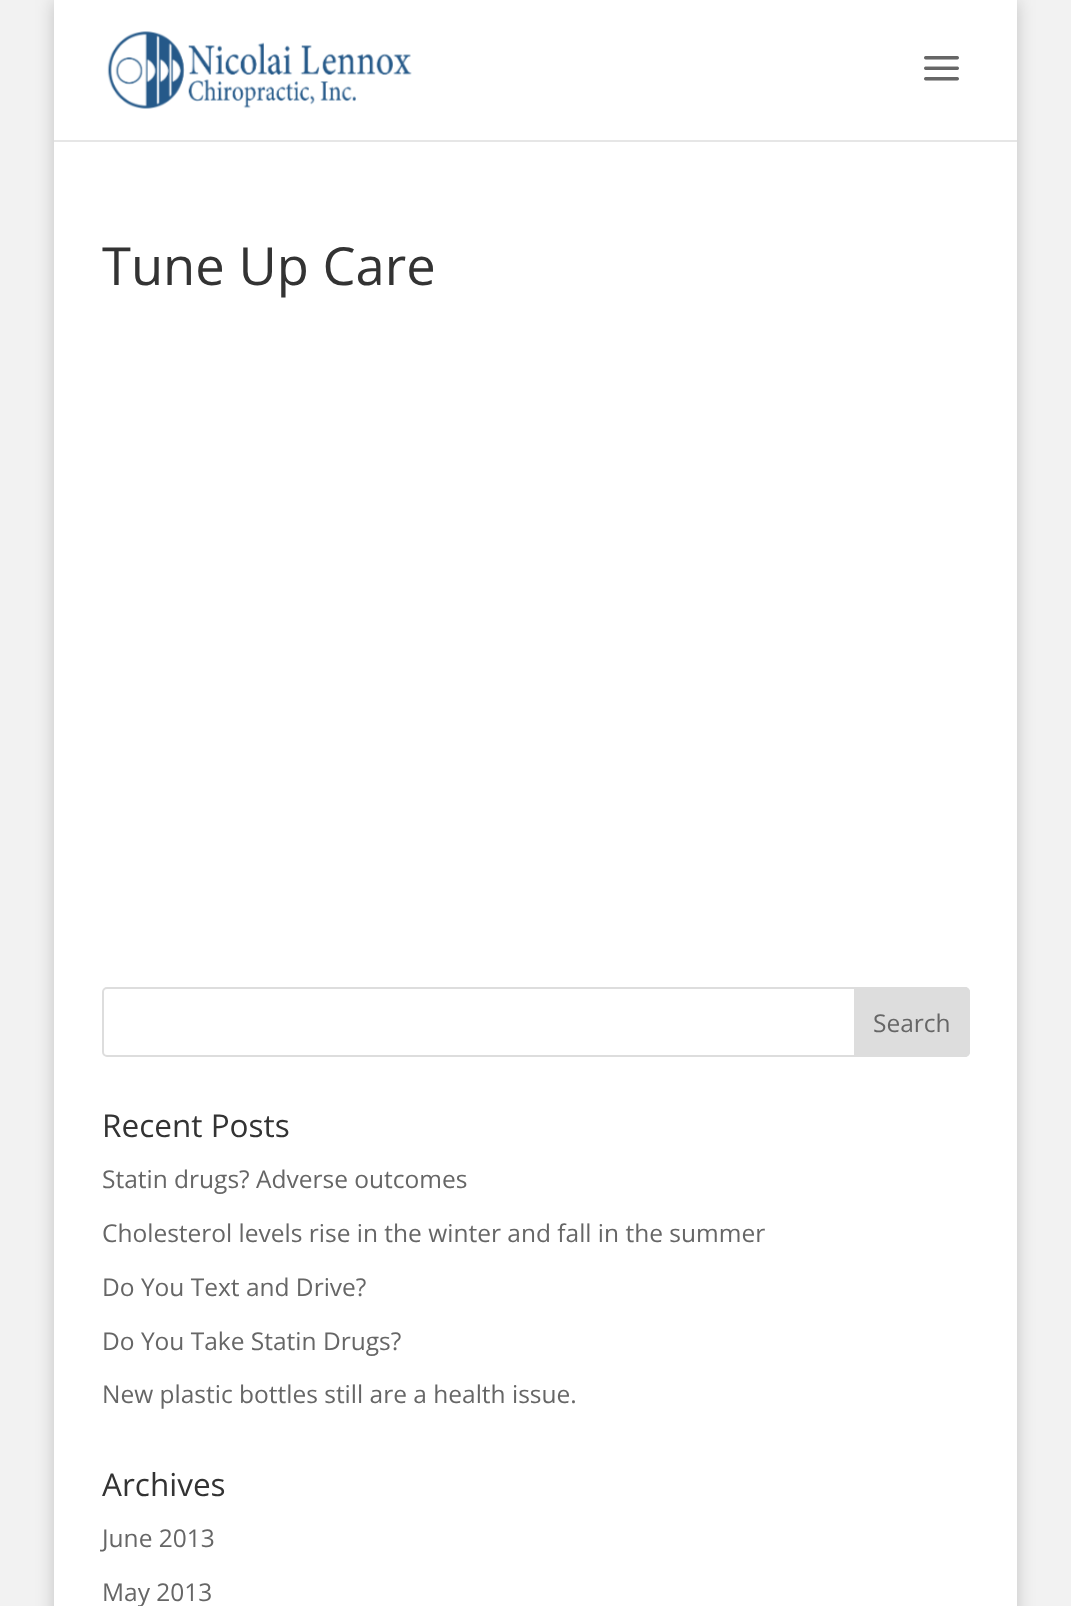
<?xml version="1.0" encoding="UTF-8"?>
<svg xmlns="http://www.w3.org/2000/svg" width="1071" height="1606">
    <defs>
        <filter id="blur1" x="-50%" y="-200%" width="200%" height="500%"><feGaussianBlur stdDeviation="9"/></filter>
    </defs>
    <rect width="100%" height="100%" fill="#F2F2F2"/>
    <rect x="54" y="0" width="963" height="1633" fill="#000000" fill-opacity="0.2" filter="url(#blur1)"/>
    <path d="M 54 2 V 142 H 1017 V 2 V 140 H 54 Z" fill="#E6E6E6"/>
    <rect x="54" y="0" width="963" height="140" fill="#FFFFFF"/>
    <image x="107" y="31" width="305" height="78" href="img_01.png"/>
    <image x="924" y="56" width="35" height="25" href="img_02.png"/>
    <rect x="54" y="142" width="963" height="1464" fill="#FFFFFF"/>
    <text x="102" y="285" font-family="Open Sans" font-size="52.5" fill="#333333">Tune Up Care</text>
    <rect x="103" y="988" width="866" height="68" rx="4" fill="none" stroke="#DDDDDD" stroke-width="2"/>
    <path d="M 855 988 H 965 C 967 988 969 990 969 992 V 1052 C 969 1054 967 1056 965 1056 H 855 Z" fill="#DDDDDD" stroke="#DDDDDD" stroke-width="2"/>
    <text x="873" y="1032" font-family="Open Sans" font-size="24.5" fill="#666666">Search</text>
    <text x="102" y="1137" font-family="Open Sans" font-size="31.5" fill="#333333">Recent Posts</text>
    <text x="102" y="1188" font-family="Open Sans" font-size="24.5" fill="#666666">Statin drugs? Adverse outcomes</text>
    <text x="102" y="1242" font-family="Open Sans" font-size="24.5" fill="#666666">Cholesterol levels rise in the winter and fall in the summer</text>
    <text x="102" y="1296" font-family="Open Sans" font-size="24.5" fill="#666666">Do You Text and Drive?</text>
    <text x="102" y="1350" font-family="Open Sans" font-size="24.5" fill="#666666">Do You Take Statin Drugs?</text>
    <text x="102" y="1403" font-family="Open Sans" font-size="24.5" fill="#666666">New plastic bottles still are a health issue.</text>
    <text x="102" y="1496" font-family="Open Sans" font-size="31.5" fill="#333333">Archives</text>
    <text x="102" y="1547" font-family="Open Sans" font-size="24.5" fill="#666666">June 2013</text>
    <text x="102" y="1601" font-family="Open Sans" font-size="24.5" fill="#666666">May 2013</text>
</svg>
